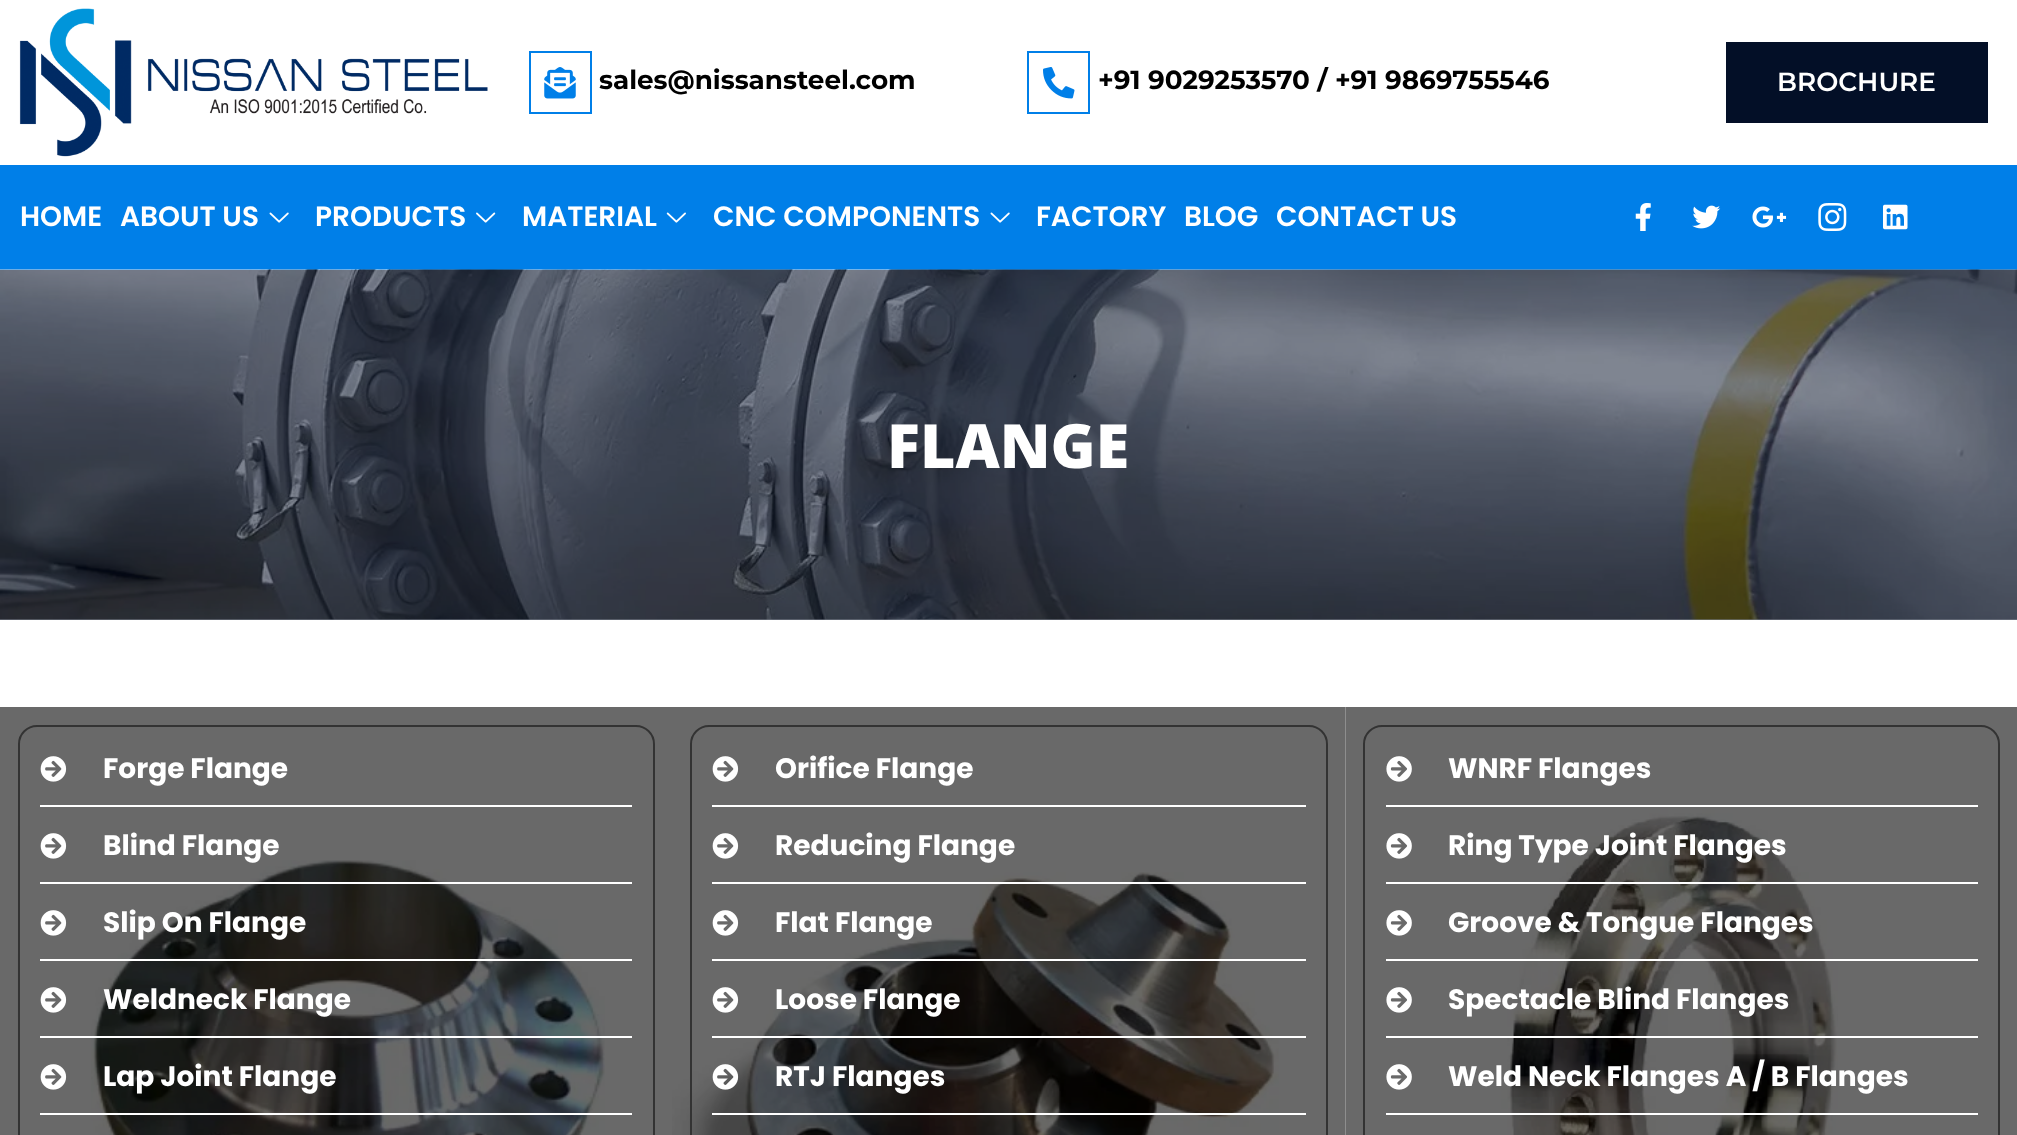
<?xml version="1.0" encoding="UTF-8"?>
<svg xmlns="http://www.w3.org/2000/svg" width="2017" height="1135">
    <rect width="100%" height="100%" fill="#FFFFFF"/>
    <rect x="1838" y="707" width="179" height="428" fill="#696969"/>
    <rect x="0" y="707" width="1346" height="428" fill="#696969"/>
    <rect x="0" y="619" width="2017" height="1" fill="#7E8591"/>
    <image x="19" y="8" width="469" height="149" href="img_01.png"/>
    <rect x="530" y="52" width="61" height="61" fill="none" stroke="#007FE8" stroke-width="2"/>
    <image x="544" y="67" width="32" height="32" href="img_02.png"/>
    <text x="599" y="89" font-family="Montserrat" font-size="26.25" font-weight="700" fill="#000000">sales@nissansteel.com</text>
    <rect x="1028" y="52" width="61" height="61" fill="none" stroke="#007FE8" stroke-width="2"/>
    <image x="1043" y="67" width="32" height="32" href="img_03.png"/>
    <text x="1098" y="89" font-family="Montserrat" font-size="26.25" font-weight="700" fill="#000000">+91 9029253570 / +91 9869755546</text>
    <rect x="1726" y="42" width="262" height="81" fill="#030F27"/>
    <text x="1777" y="91" font-family="Montserrat" font-size="26.25" font-weight="600" fill="#FFFFFF">BROCHURE</text>
    <rect x="0" y="165" width="2017" height="105" fill="#007FE8"/>
    <text x="20" y="226" font-family="Poppins" font-size="28" font-weight="600" fill="#FFFFFF">HOME</text>
    <text x="120" y="226" font-family="Poppins" font-size="28" font-weight="600" fill="#FFFFFF">ABOUT US</text>
    <image x="269" y="212" width="20" height="11" href="img_04.png"/>
    <text x="315" y="226" font-family="Poppins" font-size="28" font-weight="600" fill="#FFFFFF">PRODUCTS</text>
    <image x="476" y="212" width="20" height="11" href="img_05.png"/>
    <text x="522" y="226" font-family="Poppins" font-size="28" font-weight="600" fill="#FFFFFF">MATERIAL</text>
    <image x="666" y="212" width="20" height="11" href="img_06.png"/>
    <text x="713" y="226" font-family="Poppins" font-size="28" font-weight="600" fill="#FFFFFF">CNC COMPONENTS</text>
    <image x="990" y="212" width="20" height="11" href="img_04.png"/>
    <text x="1036" y="226" font-family="Poppins" font-size="28" font-weight="600" fill="#FFFFFF">FACTORY</text>
    <text x="1184" y="226" font-family="Poppins" font-size="28" font-weight="600" fill="#FFFFFF">BLOG</text>
    <text x="1276" y="226" font-family="Poppins" font-size="28" font-weight="600" fill="#FFFFFF">CONTACT US</text>
    <image x="1635" y="203" width="16" height="28" href="img_07.png"/>
    <image x="1692" y="205" width="29" height="24" href="img_08.png"/>
    <image x="1752" y="206" width="35" height="22" href="img_09.png"/>
    <image x="1818" y="203" width="29" height="28" href="img_10.png"/>
    <image x="1883" y="204" width="25" height="26" href="img_11.png"/>
    <image x="0" y="269" width="2017" height="351" href="img_12.png"/>
    <text x="887" y="468" font-family="Open Sans" font-size="61" font-weight="800" fill="#FFFFFF">FLANGE</text>
    <image x="91" y="860" width="514" height="275" href="img_13.png"/>
    <rect x="19" y="726" width="635" height="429" rx="18" fill="none" stroke="#333333" stroke-width="2"/>
    <image x="40" y="756" width="27" height="26" href="img_14.png"/>
    <text x="103" y="778" font-family="Poppins" font-size="28" font-weight="700" fill="#FFFFFF">Forge Flange</text>
    <rect x="40" y="805" width="592" height="2" fill="#FFFFFF"/>
    <image x="40" y="833" width="27" height="26" href="img_14.png"/>
    <text x="103" y="855" font-family="Poppins" font-size="28" font-weight="700" fill="#FFFFFF">Blind Flange</text>
    <rect x="40" y="882" width="592" height="2" fill="#FFFFFF"/>
    <image x="40" y="910" width="27" height="26" href="img_14.png"/>
    <text x="103" y="932" font-family="Poppins" font-size="28" font-weight="700" fill="#FFFFFF">Slip On Flange</text>
    <rect x="40" y="959" width="592" height="2" fill="#FFFFFF"/>
    <image x="40" y="987" width="27" height="26" href="img_14.png"/>
    <text x="103" y="1009" font-family="Poppins" font-size="28" font-weight="700" fill="#FFFFFF">Weldneck Flange</text>
    <rect x="40" y="1036" width="592" height="2" fill="#FFFFFF"/>
    <image x="40" y="1064" width="27" height="26" href="img_14.png"/>
    <text x="103" y="1086" font-family="Poppins" font-size="28" font-weight="700" fill="#FFFFFF">Lap Joint Flange</text>
    <rect x="40" y="1113" width="592" height="2" fill="#FFFFFF"/>
    <image x="672" y="872" width="607" height="263" href="img_15.png"/>
    <rect x="691" y="726" width="636" height="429" rx="18" fill="none" stroke="#333333" stroke-width="2"/>
    <image x="712" y="756" width="27" height="26" href="img_14.png"/>
    <text x="775" y="778" font-family="Poppins" font-size="28" font-weight="700" fill="#FFFFFF">Orifice Flange</text>
    <rect x="712" y="805" width="594" height="2" fill="#FFFFFF"/>
    <image x="712" y="833" width="27" height="26" href="img_14.png"/>
    <text x="775" y="855" font-family="Poppins" font-size="28" font-weight="700" fill="#FFFFFF">Reducing Flange</text>
    <rect x="712" y="882" width="594" height="2" fill="#FFFFFF"/>
    <image x="712" y="910" width="27" height="26" href="img_14.png"/>
    <text x="775" y="932" font-family="Poppins" font-size="28" font-weight="700" fill="#FFFFFF">Flat Flange</text>
    <rect x="712" y="959" width="594" height="2" fill="#FFFFFF"/>
    <image x="712" y="987" width="27" height="26" href="img_14.png"/>
    <text x="775" y="1009" font-family="Poppins" font-size="28" font-weight="700" fill="#FFFFFF">Loose Flange</text>
    <rect x="712" y="1036" width="594" height="2" fill="#FFFFFF"/>
    <image x="712" y="1064" width="27" height="26" href="img_16.png"/>
    <text x="775" y="1086" font-family="Poppins" font-size="28" font-weight="700" fill="#FFFFFF">RTJ Flanges</text>
    <rect x="712" y="1113" width="594" height="2" fill="#FFFFFF"/>
    <image x="1345" y="707" width="493" height="428" href="img_17.png"/>
    <rect x="1364" y="726" width="635" height="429" rx="18" fill="none" stroke="#333333" stroke-width="2"/>
    <image x="1386" y="756" width="26" height="26" href="img_18.png"/>
    <text x="1448" y="778" font-family="Poppins" font-size="28" font-weight="700" fill="#FFFFFF">WNRF Flanges</text>
    <rect x="1386" y="805" width="592" height="2" fill="#FFFFFF"/>
    <image x="1386" y="833" width="26" height="26" href="img_18.png"/>
    <text x="1448" y="855" font-family="Poppins" font-size="28" font-weight="700" fill="#FFFFFF">Ring Type Joint Flanges</text>
    <rect x="1386" y="882" width="592" height="2" fill="#FFFFFF"/>
    <image x="1386" y="910" width="26" height="26" href="img_18.png"/>
    <text x="1448" y="932" font-family="Poppins" font-size="28" font-weight="700" fill="#FFFFFF">Groove &amp; Tongue Flanges</text>
    <rect x="1386" y="959" width="592" height="2" fill="#FFFFFF"/>
    <image x="1386" y="987" width="26" height="26" href="img_18.png"/>
    <text x="1448" y="1009" font-family="Poppins" font-size="28" font-weight="700" fill="#FFFFFF">Spectacle Blind Flanges</text>
    <rect x="1386" y="1036" width="592" height="2" fill="#FFFFFF"/>
    <image x="1386" y="1064" width="26" height="26" href="img_18.png"/>
    <text x="1448" y="1086" font-family="Poppins" font-size="28" font-weight="700" fill="#FFFFFF">Weld Neck Flanges A / B Flanges</text>
    <rect x="1386" y="1113" width="592" height="2" fill="#FFFFFF"/>
</svg>
